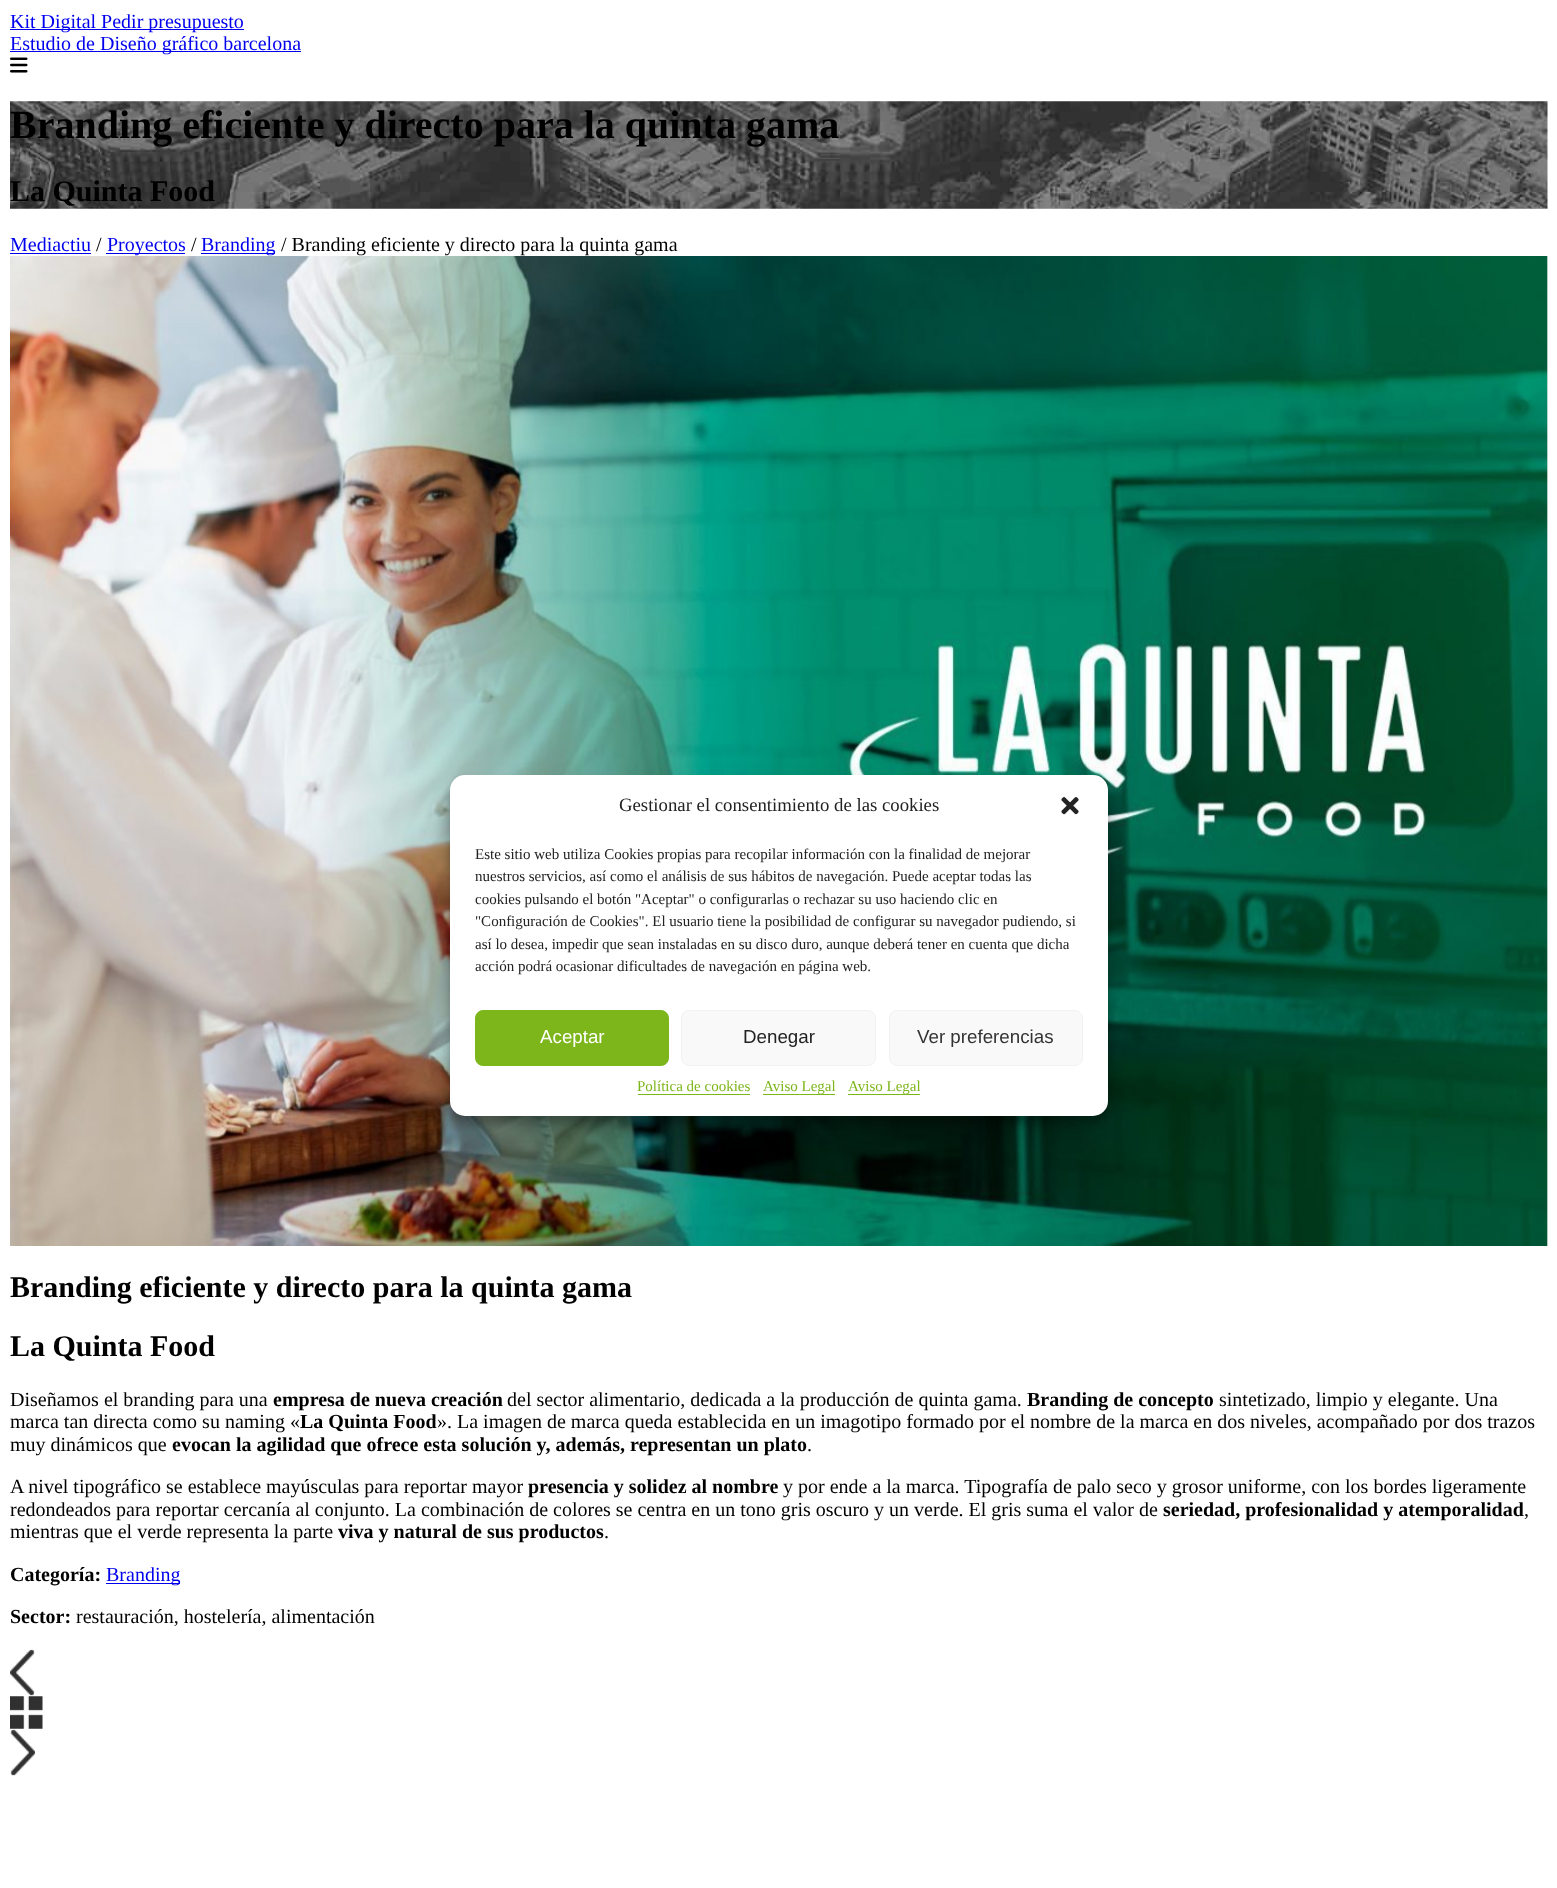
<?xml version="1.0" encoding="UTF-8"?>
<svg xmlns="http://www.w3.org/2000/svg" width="1557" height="1888">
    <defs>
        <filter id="blur1" x="-50%" y="-200%" width="200%" height="500%"><feGaussianBlur stdDeviation="4"/></filter>
        <filter id="blur2" x="-50%" y="-200%" width="200%" height="500%"><feGaussianBlur stdDeviation="12.5"/></filter>
    </defs>
    <rect width="100%" height="100%" fill="#FFFFFF"/>
    <rect x="10" y="29" width="234" height="1" fill="#0000EE"/>
    <text x="10" y="28" font-family="Liberation Serif" font-size="20" fill="#0000EE">Kit Digital Pedir presupuesto</text>
    <rect x="10" y="51" width="291" height="1" fill="#0000EE"/>
    <text x="10" y="50" font-family="Liberation Serif" font-size="20" fill="#0000EE">Estudio de Diseño gráfico barcelona</text>
    <image x="10" y="57" width="18" height="16" href="img_01.png"/>
    <image x="10" y="101" width="1538" height="108" href="img_02.png"/>
    <text x="10" y="138" font-family="Liberation Serif" font-size="40" font-weight="700" fill="#000000">Branding eficiente y directo para la quinta gama</text>
    <text x="10" y="201" font-family="Liberation Serif" font-size="30" font-weight="700" fill="#000000">La Quinta Food</text>
    <text x="10" y="251" font-family="Liberation Serif" font-size="20" fill="#0000EE">Mediactiu</text>
    <rect x="10" y="253" width="81" height="1" fill="#0000EE"/>
    <text x="96" y="251" font-family="Liberation Serif" font-size="20" fill="#000000">/</text>
    <rect x="106" y="253" width="79" height="1" fill="#0000EE"/>
    <text x="107" y="251" font-family="Liberation Serif" font-size="20" fill="#0000EE">Proyectos</text>
    <text x="191" y="251" font-family="Liberation Serif" font-size="20" fill="#000000">/</text>
    <rect x="201" y="253" width="74" height="1" fill="#0000EE"/>
    <text x="201" y="251" font-family="Liberation Serif" font-size="20" fill="#0000EE">Branding</text>
    <text x="281" y="251" font-family="Liberation Serif" font-size="20" fill="#000000">/ Branding eficiente y directo para la quinta gama</text>
    <rect x="1547" y="256" width="1" height="990" fill="#EEEEEE"/>
    <image x="10" y="256" width="1538" height="990" href="img_03.png"/>
    <text font-family="Liberation Serif" font-size="30" font-weight="700" fill="#000000">
        <tspan x="10" y="1297">Branding eficiente y directo para la quinta gama</tspan>
        <tspan x="10" y="1356">La Quinta Food</tspan>
    </text>
    <text x="10" y="1406" font-family="Liberation Serif" font-size="20" fill="#000000">Diseñamos el branding para una</text>
    <text x="273" y="1406" font-family="Liberation Serif" font-size="20" font-weight="700" fill="#000000">empresa de nueva creación</text>
    <text x="507" y="1406" font-family="Liberation Serif" font-size="20" fill="#000000">del sector alimentario, dedicada a la producción de quinta gama.</text>
    <text x="1027" y="1406" font-family="Liberation Serif" font-size="20" font-weight="700" fill="#000000">Branding de concepto</text>
    <text x="1219" y="1406" font-family="Liberation Serif" font-size="20" fill="#000000">sintetizado, limpio y elegante. Una</text>
    <text x="10" y="1428" font-family="Liberation Serif" font-size="20" fill="#000000">marca tan directa como su naming «</text>
    <text x="300" y="1428" font-family="Liberation Serif" font-size="20" font-weight="700" fill="#000000">La Quinta Food</text>
    <text x="437" y="1428" font-family="Liberation Serif" font-size="20" fill="#000000">». La imagen de marca queda establecida en un imagotipo formado por el nombre de la marca en dos niveles, acompañado por dos trazos</text>
    <text x="10" y="1451" font-family="Liberation Serif" font-size="20" fill="#000000">muy dinámicos que</text>
    <text x="172" y="1451" font-family="Liberation Serif" font-size="20" font-weight="700" fill="#000000">evocan la agilidad que ofrece esta solución y, además, representan un plato</text>
    <text x="807" y="1451" font-family="Liberation Serif" font-size="20" fill="#000000">.</text>
    <text x="10" y="1493" font-family="Liberation Serif" font-size="20" fill="#000000">A nivel tipográfico se establece mayúsculas para reportar mayor</text>
    <text x="528" y="1493" font-family="Liberation Serif" font-size="20" font-weight="700" fill="#000000">presencia y solidez al nombre</text>
    <text x="783" y="1493" font-family="Liberation Serif" font-size="20" fill="#000000">y por ende a la marca. Tipografía de palo seco y grosor uniforme, con los bordes ligeramente</text>
    <text x="10" y="1516" font-family="Liberation Serif" font-size="20" fill="#000000">redondeados para reportar cercanía al conjunto. La combinación de colores se centra en un tono gris oscuro y un verde. El gris suma el valor de</text>
    <text x="1163" y="1516" font-family="Liberation Serif" font-size="20" font-weight="700" fill="#000000">seriedad, profesionalidad y atemporalidad</text>
    <text x="1524" y="1516" font-family="Liberation Serif" font-size="20" fill="#000000">,</text>
    <text x="10" y="1538" font-family="Liberation Serif" font-size="20" fill="#000000">mientras que el verde representa la parte</text>
    <text x="338" y="1538" font-family="Liberation Serif" font-size="20" font-weight="700" fill="#000000">viva y natural de sus productos</text>
    <text x="604" y="1538" font-family="Liberation Serif" font-size="20" fill="#000000">.</text>
    <text x="10" y="1581" font-family="Liberation Serif" font-size="20" font-weight="700" fill="#000000">Categoría:</text>
    <rect x="106" y="1583" width="74" height="1" fill="#0000EE"/>
    <text x="106" y="1581" font-family="Liberation Serif" font-size="20" fill="#0000EE">Branding</text>
    <text x="10" y="1623" font-family="Liberation Serif" font-size="20" font-weight="700" fill="#000000">Sector:</text>
    <text x="76" y="1623" font-family="Liberation Serif" font-size="20" fill="#000000">restauración, hostelería, alimentación</text>
    <image x="10" y="1649" width="25" height="47" href="img_04.png"/>
    <image x="10" y="1696" width="33" height="33" href="img_05.png"/>
    <image x="10" y="1729" width="25" height="47" href="img_06.png"/>
    <rect x="450" y="783" width="658" height="341" rx="15" fill="#000000" fill-opacity="0.23" filter="url(#blur1)"/>
    <rect x="450" y="788" width="658" height="341" rx="15" fill="#000000" fill-opacity="0.19" filter="url(#blur2)"/>
    <rect x="450" y="775" width="658" height="341" rx="15" fill="#FFFFFF"/>
    <text x="619" y="811" font-family="Liberation Serif" font-size="18.75" fill="#222222">Gestionar el consentimiento de las cookies</text>
    <image x="1061" y="797" width="18" height="18" href="img_07.png"/>
    <text font-family="Liberation Serif" font-size="15" fill="#222222">
        <tspan x="475" y="859">Este sitio web utiliza Cookies propias para recopilar información con la finalidad de mejorar</tspan>
        <tspan x="475" y="881">nuestros servicios, así como el análisis de sus hábitos de navegación. Puede aceptar todas las</tspan>
        <tspan x="475" y="904">cookies pulsando el botón "Aceptar" o configurarlas o rechazar su uso haciendo clic en</tspan>
        <tspan x="475" y="926">"Configuración de Cookies". El usuario tiene la posibilidad de configurar su navegador pudiendo, si</tspan>
        <tspan x="475" y="949">así lo desea, impedir que sean instaladas en su disco duro, aunque deberá tener en cuenta que dicha</tspan>
        <tspan x="475" y="971">acción podrá ocasionar dificultades de navegación en página web.</tspan>
    </text>
    <rect x="475.5" y="1010.5" width="193" height="55" rx="7.5" fill="#7DB61B" stroke="#7DB61B"/>
    <text x="540" y="1043" font-family="Liberation Sans" font-size="18.75" fill="#FFFFFF">Aceptar</text>
    <rect x="681.5" y="1010.5" width="194" height="55" rx="7.5" fill="#F9F9F9" stroke="#F2F2F2"/>
    <text x="743" y="1043" font-family="Liberation Sans" font-size="18.75" fill="#222222">Denegar</text>
    <rect x="889.5" y="1010.5" width="193" height="55" rx="7.5" fill="#F9F9F9" stroke="#F2F2F2"/>
    <text x="917" y="1043" font-family="Liberation Sans" font-size="18.75" fill="#333333">Ver preferencias</text>
    <text x="637" y="1091" font-family="Liberation Serif" font-size="15" fill="#7DB61B">Política de cookies</text>
    <rect x="638" y="1094" width="112" height="1" fill="#7DB61B"/>
    <rect x="763" y="1094" width="72" height="1" fill="#7DB61B"/>
    <text x="763" y="1091" font-family="Liberation Serif" font-size="15" fill="#7DB61B">Aviso Legal</text>
    <rect x="848" y="1094" width="72" height="1" fill="#7DB61B"/>
    <text x="848" y="1091" font-family="Liberation Serif" font-size="15" fill="#7DB61B">Aviso Legal</text>
</svg>
